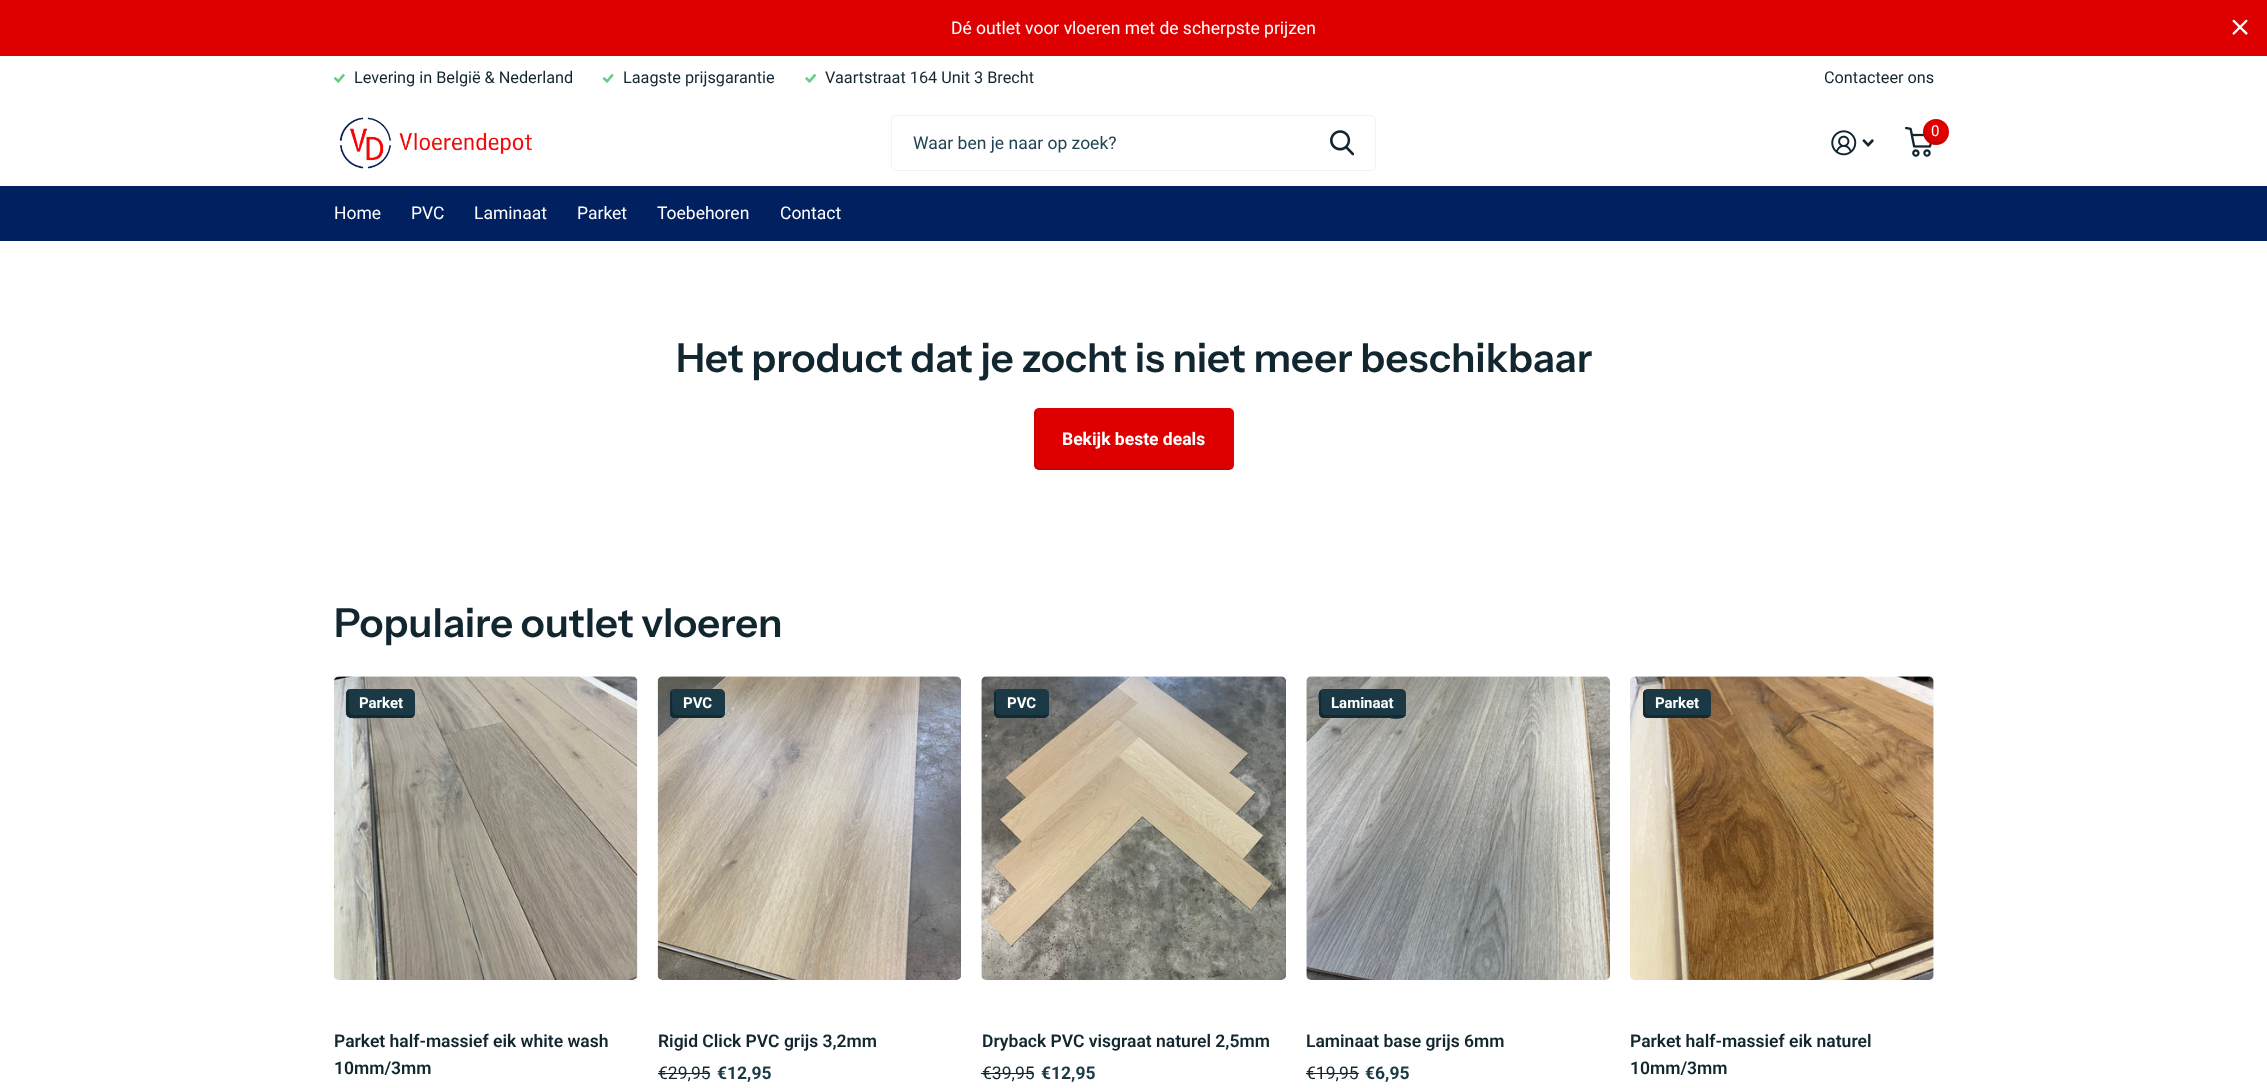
<?xml version="1.0" encoding="UTF-8"?>
<svg xmlns="http://www.w3.org/2000/svg" width="2267" height="1088">
    <rect width="100%" height="100%" fill="#DE0000"/>
    <text x="951" y="34" font-family="Roboto" font-size="17.5" fill="#FFFFFF">Dé outlet voor vloeren met de scherpste prijzen</text>
    <image x="2232" y="19" width="16" height="16" href="img_01.png"/>
    <rect x="0" y="56" width="2267" height="1032" fill="#FFFFFF"/>
    <image x="334" y="73" width="11" height="10" href="img_02.png"/>
    <text x="354" y="83" font-family="Roboto" font-size="16.25" fill="#12262F">Levering in België &amp; Nederland</text>
    <image x="603" y="73" width="11" height="10" href="img_03.png"/>
    <text x="623" y="83" font-family="Roboto" font-size="16.25" fill="#12262F">Laagste prijsgarantie</text>
    <image x="805" y="73" width="12" height="10" href="img_04.png"/>
    <text x="825" y="83" font-family="Roboto" font-size="16.25" fill="#12262F">Vaartstraat 164 Unit 3 Brecht</text>
    <text x="1824" y="83" font-family="Roboto" font-size="16.25" fill="#12262F">Contacteer ons</text>
    <image x="1831" y="130" width="26" height="26" href="img_05.png"/>
    <image x="1862" y="139" width="12" height="8" href="img_06.png"/>
    <image x="1905" y="126" width="27" height="31" href="img_07.png"/>
    <circle cx="1936" cy="132" r="13" fill="#DE0000"/>
    <path d="M 1947.5 138 C 1945.5 140.5 1942.5 142 1938 142 C 1927 142 1923 131 1926.5 123 C 1917 133 1928.5 149.5 1941.5 144 C 1944 142.5 1946 140.5 1947.5 138 Z" fill="#000000" fill-opacity="0.1"/>
    <text x="1931" y="136" font-family="Roboto" font-size="15" fill="#FFFFFF">0</text>
    <image x="339" y="117" width="193" height="52" href="img_08.png"/>
    <rect x="891.5" y="115.5" width="484" height="55" rx="4.5" fill="none" stroke="#F2F2F2"/>
    <text x="913" y="149" font-family="Roboto" font-size="17.5" fill="#204454">Waar ben je naar op zoek?</text>
    <image x="1330" y="130" width="25" height="26" href="img_09.png"/>
    <rect x="0" y="186" width="2267" height="55" fill="#002060"/>
    <text x="334" y="219" font-family="Roboto" font-size="17.5" fill="#FFFFFF">Home</text>
    <text x="411" y="219" font-family="Roboto" font-size="17.5" fill="#FFFFFF">PVC</text>
    <text x="474" y="219" font-family="Roboto" font-size="17.5" fill="#FFFFFF">Laminaat</text>
    <text x="577" y="219" font-family="Roboto" font-size="17.5" fill="#FFFFFF">Parket</text>
    <text x="657" y="219" font-family="Roboto" font-size="17.5" fill="#FFFFFF">Toebehoren</text>
    <text x="780" y="219" font-family="Roboto" font-size="17.5" fill="#FFFFFF">Contact</text>
    <text x="676" y="372" font-family="Instrument Sans" font-size="40" font-weight="600" fill="#12262F">Het product dat je zocht is niet meer beschikbaar</text>
    <rect x="1034" y="408" width="200" height="62" rx="5" fill="#DE0000"/>
    <path d="M 1036 409 C 1035 410 1034 411 1034 413 V 465 C 1034 468 1036 470 1039 470 H 1229 C 1231 470 1233 469 1233 467 L 1231 468 H 1041 C 1038 468 1036 465 1036 462 Z" fill="#000000" fill-opacity="0.1"/>
    <text x="1062" y="445" font-family="Roboto" font-size="17.5" font-weight="700" fill="#FFFFFF">Bekijk beste deals</text>
    <text x="334" y="637" font-family="Instrument Sans" font-size="40" font-weight="600" fill="#12262F">Populaire outlet vloeren</text>
    <image x="334" y="676" width="304" height="304" href="img_10.png"/>
    <rect x="346" y="689" width="69" height="29" rx="5" fill="#1A3945"/>
    <path d="M 349 689 V 704 C 349 717 350 715 364 715 H 402 C 404 715 411 716 415 714 C 414 716 413 718 411 718 H 371 C 343 718 346 722 346 697 C 346 694 346 691 349 689 Z" fill="#132A32"/>
    <text x="359" y="708" font-family="Roboto" font-size="15" font-weight="700" fill="#FFFFFF">Parket</text>
    <text font-family="Roboto" font-size="17.5" font-weight="600" fill="#12262F">
        <tspan x="334" y="1047">Parket half-massief eik white wash</tspan>
        <tspan x="334" y="1074">10mm/3mm</tspan>
    </text>
    <image x="657" y="676" width="304" height="304" href="img_11.png"/>
    <rect x="670" y="689" width="55" height="29" rx="5" fill="#1A3945"/>
    <path d="M 672 690 V 704 C 672 716 673 715 685 715 H 715 C 717 715 722 716 725 714 C 724 716 722 718 720 718 H 675 C 672 718 670 716 670 713 V 694 C 670 692 671 691 672 690 Z" fill="#132A32"/>
    <text x="683" y="708" font-family="Roboto" font-size="15" font-weight="700" fill="#FFFFFF">PVC</text>
    <text x="658" y="1047" font-family="Roboto" font-size="17.5" font-weight="600" fill="#12262F">Rigid Click PVC grijs 3,2mm</text>
    <text x="658" y="1079" font-family="Roboto" font-size="17.5" fill="#12262F">€29,95</text>
    <rect x="658" y="1073" width="52" height="1" fill="#12262F"/>
    <text x="717" y="1079" font-family="Roboto" font-size="17.5" font-weight="700" fill="#1A3945">€12,95</text>
    <image x="981" y="676" width="305" height="304" href="img_12.png"/>
    <rect x="994" y="689" width="55" height="29" rx="5" fill="#1A3945"/>
    <path d="M 996 690 V 704 C 996 716 996 715 1008 715 H 1038 C 1040 715 1046 716 1049 714 C 1048 716 1046 718 1044 718 H 999 C 996 718 994 716 994 713 V 694 C 994 692 995 691 996 690 Z" fill="#132A32"/>
    <text x="1007" y="708" font-family="Roboto" font-size="15" font-weight="700" fill="#FFFFFF">PVC</text>
    <text x="982" y="1047" font-family="Roboto" font-size="17.5" font-weight="600" fill="#12262F">Dryback PVC visgraat naturel 2,5mm</text>
    <text x="982" y="1079" font-family="Roboto" font-size="17.5" fill="#12262F">€39,95</text>
    <rect x="981" y="1073" width="53" height="1" fill="#12262F"/>
    <text x="1041" y="1079" font-family="Roboto" font-size="17.5" font-weight="700" fill="#1A3945">€12,95</text>
    <image x="1306" y="676" width="304" height="304" href="img_13.png"/>
    <rect x="1319" y="689" width="87" height="29" rx="5" fill="#1A3945"/>
    <path d="M 1321 690 V 704 C 1321 708 1320 715 1326 715 H 1406 C 1403 721 1391 718 1388 718 H 1337 C 1318 718 1319 720 1319 704 C 1319 700 1317 693 1321 690 Z" fill="#132A32"/>
    <text x="1331" y="708" font-family="Roboto" font-size="15" font-weight="700" fill="#FFFFFF">Laminaat</text>
    <text x="1306" y="1047" font-family="Roboto" font-size="17.5" font-weight="600" fill="#12262F">Laminaat base grijs 6mm</text>
    <text x="1306" y="1079" font-family="Roboto" font-size="17.5" fill="#12262F">€19,95</text>
    <rect x="1306" y="1073" width="53" height="1" fill="#12262F"/>
    <text x="1365" y="1079" font-family="Roboto" font-size="17.5" font-weight="700" fill="#1A3945">€6,95</text>
    <image x="1630" y="676" width="304" height="304" href="img_14.png"/>
    <rect x="1643" y="689" width="68" height="29" rx="5" fill="#1A3945"/>
    <path d="M 1645 690 V 704 C 1645 708 1644 715 1650 715 H 1711 C 1710 717 1708 718 1706 718 H 1648 C 1645 718 1643 716 1643 713 V 694 C 1643 692 1644 691 1645 690 Z" fill="#132A32"/>
    <text x="1655" y="708" font-family="Roboto" font-size="15" font-weight="700" fill="#FFFFFF">Parket</text>
    <text font-family="Roboto" font-size="17.5" font-weight="600" fill="#12262F">
        <tspan x="1630" y="1047">Parket half-massief eik naturel</tspan>
        <tspan x="1630" y="1074">10mm/3mm</tspan>
    </text>
</svg>
